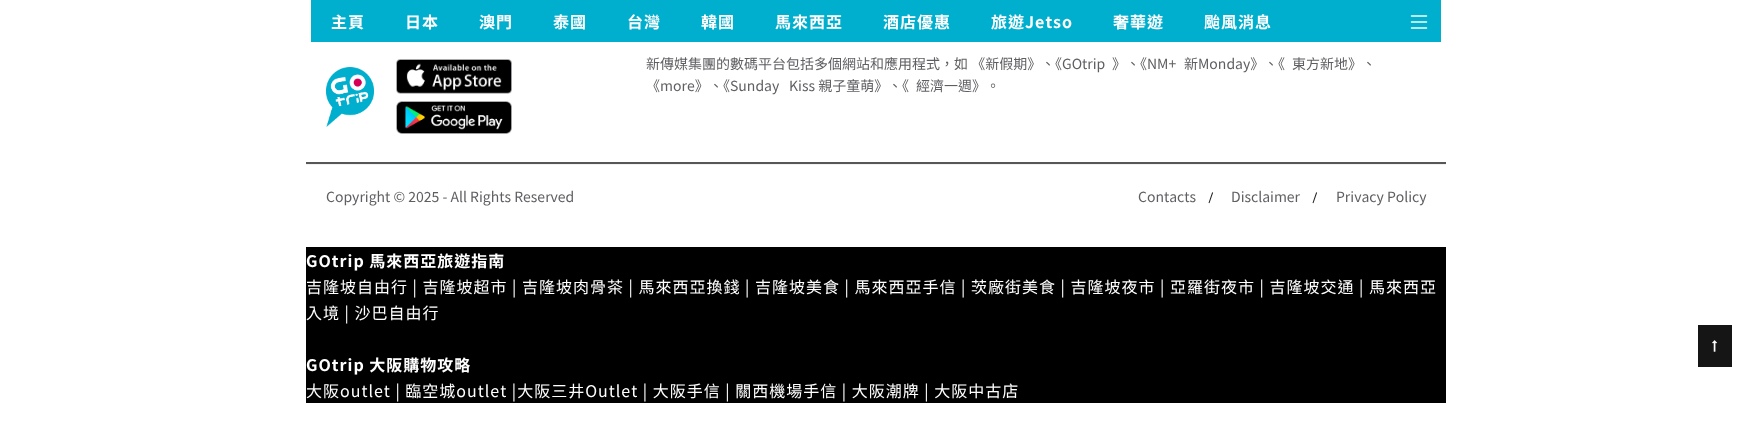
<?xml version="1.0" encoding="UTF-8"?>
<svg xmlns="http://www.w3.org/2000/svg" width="1752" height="429">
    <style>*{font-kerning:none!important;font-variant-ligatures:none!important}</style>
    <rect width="100%" height="100%" fill="#FFFFFF"/>
    <rect x="311" y="0" width="1130" height="42" fill="#00AECD"/>
    <text x="331" y="28" font-family="Noto Sans TC" font-size="16" font-weight="700" letter-spacing="1" fill="#FFFFFF">主頁</text>
    <text x="405" y="28" font-family="Noto Sans TC" font-size="16" font-weight="700" letter-spacing="1" fill="#FFFFFF">日本</text>
    <text x="479" y="28" font-family="Noto Sans TC" font-size="16" font-weight="700" letter-spacing="1" fill="#FFFFFF">澳門</text>
    <text x="553" y="28" font-family="Noto Sans TC" font-size="16" font-weight="700" letter-spacing="1" fill="#FFFFFF">泰國</text>
    <text x="627" y="28" font-family="Noto Sans TC" font-size="16" font-weight="700" letter-spacing="1" fill="#FFFFFF">台灣</text>
    <text x="701" y="28" font-family="Noto Sans TC" font-size="16" font-weight="700" letter-spacing="1" fill="#FFFFFF">韓國</text>
    <text x="775" y="28" font-family="Noto Sans TC" font-size="16" font-weight="700" letter-spacing="1" fill="#FFFFFF">馬來西亞</text>
    <text x="883" y="28" font-family="Noto Sans TC" font-size="16" font-weight="700" letter-spacing="1" fill="#FFFFFF">酒店優惠</text>
    <text x="991" y="28" font-family="Noto Sans TC" font-size="16" font-weight="700" letter-spacing="1" fill="#FFFFFF">旅遊Jetso</text>
    <text x="1113" y="28" font-family="Noto Sans TC" font-size="16" font-weight="700" letter-spacing="1" fill="#FFFFFF">奢華遊</text>
    <text x="1204" y="28" font-family="Noto Sans TC" font-size="16" font-weight="700" letter-spacing="1" fill="#FFFFFF">颱風消息</text>
    <image x="1410" y="15" width="18" height="14" href="img_01.png"/>
    <rect x="306" y="162" width="1140" height="2" fill="#585657"/>
    <image x="326" y="67" width="48" height="60" href="img_02.png"/>
    <image x="396" y="59" width="116" height="35" href="img_03.png"/>
    <image x="396" y="101" width="116" height="33" href="img_04.png"/>
    <text x="646" y="69" font-family="Noto Sans TC" font-size="14" fill="#5F5E62">新傳媒集團的數碼平台包括多個網站和應用程式，如 《新假期》</text>
    <text x="1041" y="69" font-family="Noto Sans TC" font-size="14" fill="#5F5E62">、《GOtrip</text>
    <text x="1112" y="69" font-family="Noto Sans TC" font-size="14" fill="#5F5E62">》</text>
    <text x="1126" y="69" font-family="Noto Sans TC" font-size="14" fill="#5F5E62">、《NM+</text>
    <text x="1184" y="69" font-family="Noto Sans TC" font-size="14" fill="#5F5E62">新Monday》</text>
    <text x="1264" y="69" font-family="Noto Sans TC" font-size="14" fill="#5F5E62">、《</text>
    <text x="1292" y="69" font-family="Noto Sans TC" font-size="14" fill="#5F5E62">東方新地》</text>
    <text x="1362" y="69" font-family="Noto Sans TC" font-size="14" fill="#5F5E62">、</text>
    <text x="646" y="91" font-family="Noto Sans TC" font-size="14" fill="#5F5E62">《more》</text>
    <text x="709" y="91" font-family="Noto Sans TC" font-size="14" fill="#5F5E62">、《Sunday</text>
    <text x="789" y="91" font-family="Noto Sans TC" font-size="14" fill="#5F5E62">Kiss 親子童萌》</text>
    <text x="888" y="91" font-family="Noto Sans TC" font-size="14" fill="#5F5E62">、《</text>
    <text x="916" y="91" font-family="Noto Sans TC" font-size="14" fill="#5F5E62">經濟一週》</text>
    <text x="986" y="91" font-family="Noto Sans TC" font-size="14" fill="#5F5E62">。</text>
    <rect x="306" y="164" width="1140" height="1" fill="#F2F2F2"/>
    <text x="326" y="202" font-family="Noto Sans TC" font-size="14" fill="#5F5E62">Copyright © 2025 - All Rights Reserved</text>
    <text x="1138" y="202" font-family="Noto Sans TC" font-size="14" fill="#5F5E62">Contacts</text>
    <text x="1208" y="202" font-family="NTR" font-size="16" letter-spacing="1" fill="#231F20">/</text>
    <text x="1231" y="202" font-family="Noto Sans TC" font-size="14" fill="#5F5E62">Disclaimer</text>
    <text x="1312" y="202" font-family="NTR" font-size="16" letter-spacing="1" fill="#231F20">/</text>
    <text x="1336" y="202" font-family="Noto Sans TC" font-size="14" fill="#5F5E62">Privacy Policy</text>
    <rect x="306" y="247" width="1140" height="156" fill="#000000"/>
    <text x="306" y="267" font-family="Noto Sans TC" font-size="16" font-weight="700" letter-spacing="1" fill="#FFFFFF">GOtrip 馬來西亞旅遊指南</text>
    <text font-family="Noto Sans TC" font-size="16" letter-spacing="1" fill="#FFFFFF">
        <tspan x="306" y="293">吉隆坡自由行 | 吉隆坡超市 | 吉隆坡肉骨茶 | 馬來西亞換錢 | 吉隆坡美食 | 馬來西亞手信 | 茨廠街美食 | 吉隆坡夜市 | 亞羅街夜市 | 吉隆坡交通 | 馬來西亞</tspan>
        <tspan x="306" y="319">入境 | 沙巴自由行</tspan>
    </text>
    <text x="306" y="371" font-family="Noto Sans TC" font-size="16" font-weight="700" letter-spacing="1" fill="#FFFFFF">GOtrip 大阪購物攻略</text>
    <text x="306" y="397" font-family="Noto Sans TC" font-size="16" letter-spacing="1" fill="#FFFFFF">大阪outlet | 臨空城outlet |大阪三井Outlet | 大阪手信 | 關西機場手信 | 大阪潮牌 | 大阪中古店</text>
    <rect x="1698" y="325" width="34" height="42" fill="#151515"/>
    <image x="1712" y="340" width="6" height="12" href="img_05.png"/>
</svg>
